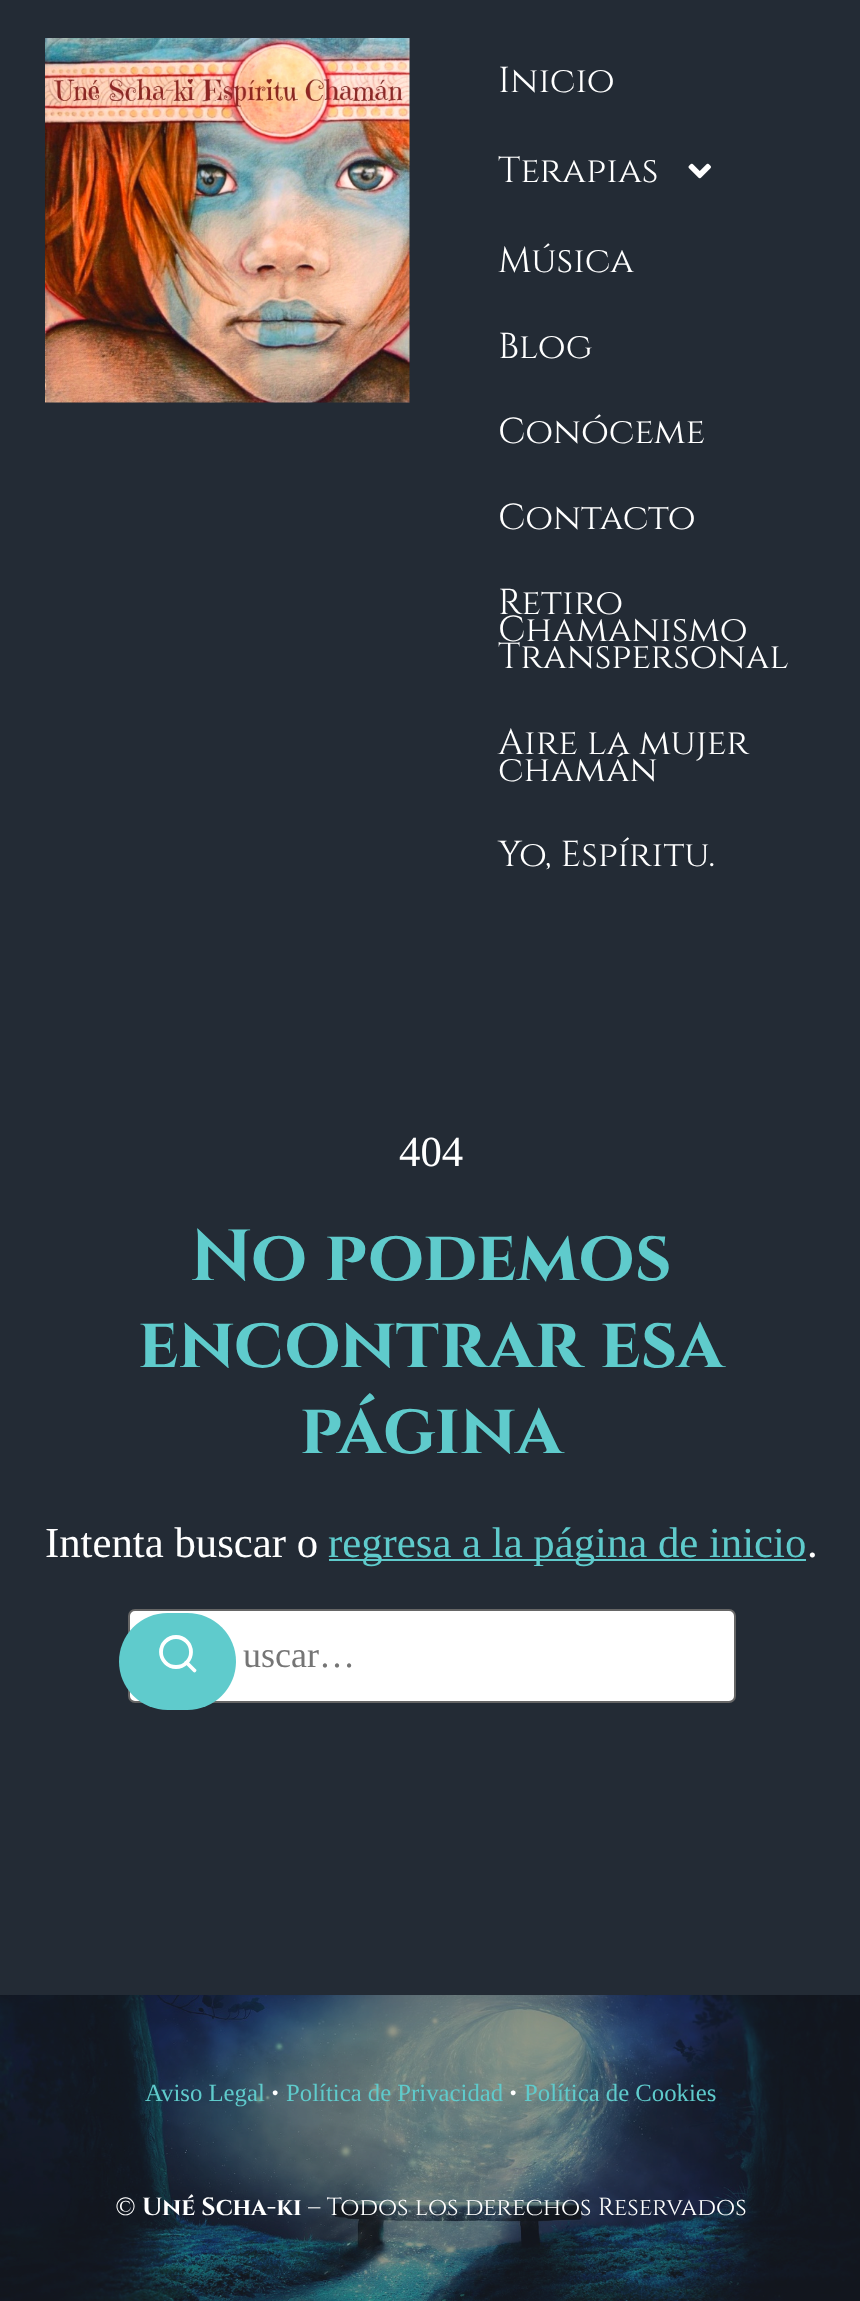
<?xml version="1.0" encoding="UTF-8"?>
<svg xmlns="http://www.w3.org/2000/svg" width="860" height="2301">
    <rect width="100%" height="100%" fill="#232B35"/>
    <image x="45" y="38" width="365" height="365" href="img_01.png"/>
    <text x="498" y="92" font-family="Cinzel" font-size="36" fill="#FFFFFF">Inicio</text>
    <text x="498" y="182" font-family="Cinzel" font-size="36" fill="#FFFFFF">Terapias</text>
    <image x="688" y="163" width="23" height="16" href="img_02.png"/>
    <text x="498" y="272" font-family="Cinzel" font-size="36" fill="#FFFFFF">Música</text>
    <text x="498" y="358" font-family="Cinzel" font-size="36" fill="#FFFFFF">Blog</text>
    <text x="498" y="443" font-family="Cinzel" font-size="36" fill="#FFFFFF">Conóceme</text>
    <text x="498" y="529" font-family="Cinzel" font-size="36" fill="#FFFFFF">Contacto</text>
    <text font-family="Cinzel" font-size="36" fill="#FFFFFF">
        <tspan x="498" y="614">Retiro</tspan>
        <tspan x="498" y="641">Chamanismo</tspan>
        <tspan x="498" y="668">Transpersonal</tspan>
    </text>
    <text font-family="Cinzel" font-size="36" fill="#FFFFFF">
        <tspan x="498" y="754">Aire la mujer</tspan>
        <tspan x="498" y="781">chamán</tspan>
    </text>
    <text x="498" y="866" font-family="Cinzel" font-size="36" fill="#FFFFFF">Yo, Espíritu.</text>
    <text x="399" y="1166" font-family="Liberation Serif" font-size="42.75" fill="#FFFFFF">404</text>
    <text x="190" y="1280" font-family="Cinzel" font-size="72" font-weight="700" fill="#5FCBCC">No podemos</text>
    <text x="138" y="1367" font-family="Cinzel" font-size="72" font-weight="700" fill="#5FCBCC">encontrar esa</text>
    <text x="300" y="1453" font-family="Cinzel" font-size="72" font-weight="700" fill="#5FCBCC">página</text>
    <text x="45" y="1557" font-family="Liberation Serif" font-size="42.75" fill="#FFFFFF">Intenta buscar o</text>
    <rect x="329" y="1559" width="477" height="2" fill="#5FCBCC"/>
    <text x="328" y="1557" font-family="Liberation Serif" font-size="42.75" fill="#5FCBCC">regresa a la página de inicio</text>
    <text x="807" y="1557" font-family="Liberation Serif" font-size="42.75" fill="#FFFFFF">.</text>
    <rect x="129" y="1610" width="606" height="92" rx="6" fill="#FFFFFF" stroke="#666666" stroke-width="2"/>
    <rect x="119" y="1613" width="117" height="97" rx="48.5" fill="#5FCBCC"/>
    <circle cx="176" cy="1652" r="15" fill="none" stroke="#FFFFFF" stroke-width="3.8"/>
    <path d="M 194.5 1670.5 L 186.5 1662.5" fill="none" stroke="#FFFFFF" stroke-width="3.8" stroke-linecap="round" stroke-linejoin="round"/>
    <text x="243" y="1667" font-family="Liberation Serif" font-size="36" fill="#757575">uscar…</text>
    <image x="0" y="1995" width="860" height="306" href="img_03.png"/>
    <text x="145" y="2101" font-family="Liberation Serif" font-size="24.75" fill="#5FCBCC">Aviso Legal</text>
    <text x="271" y="2101" font-family="Cinzel" font-size="24.75" fill="#FFFFFF">•</text>
    <text x="286" y="2101" font-family="Liberation Serif" font-size="24.75" fill="#5FCBCC">Política de Privacidad</text>
    <text x="509" y="2101" font-family="Cinzel" font-size="24.75" fill="#FFFFFF">•</text>
    <text x="524" y="2101" font-family="Liberation Serif" font-size="24.75" fill="#5FCBCC">Política de Cookies</text>
    <text x="115" y="2215" font-family="Cinzel" font-size="24.75" fill="#FFFFFF">©</text>
    <text x="142" y="2215" font-family="Cinzel" font-size="24.75" font-weight="700" fill="#FFFFFF">Uné Scha-ki</text>
    <text x="308" y="2215" font-family="Cinzel" font-size="24.75" fill="#FFFFFF">– Todos los derechos Reservados</text>
</svg>
